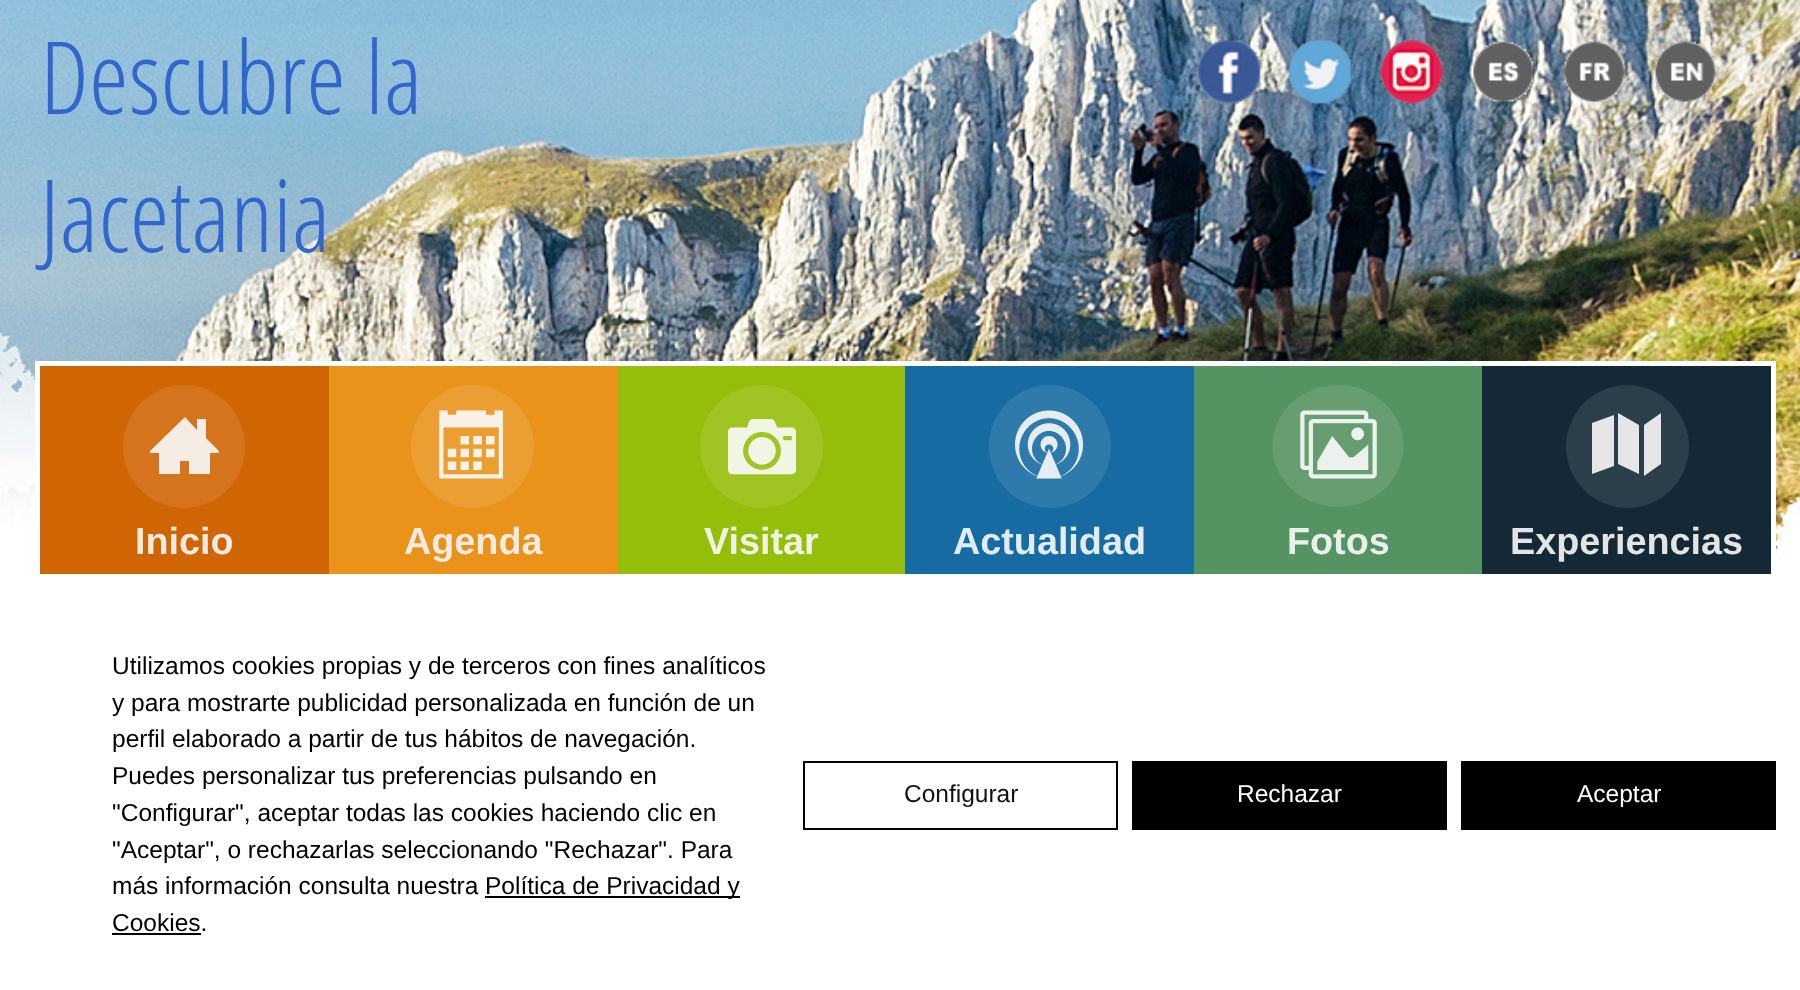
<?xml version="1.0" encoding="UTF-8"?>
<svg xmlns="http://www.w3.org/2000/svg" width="1800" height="990">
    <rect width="100%" height="100%" fill="#FFFFFF"/>
    <image x="0" y="0" width="1800" height="577" href="img_01.png"/>
    <text font-family="Open Sans Condensed" font-size="101" font-weight="300" fill="#3366CC">
        <tspan x="40" y="114">Descubre la</tspan>
        <tspan x="40" y="252">Jacetania</tspan>
    </text>
    <image x="1198" y="40" width="63" height="64" href="img_02.png"/>
    <image x="1289" y="40" width="63" height="64" href="img_03.png"/>
    <image x="1380" y="39" width="63" height="65" href="img_04.png"/>
    <image x="1473" y="41" width="61" height="61" href="img_05.png"/>
    <image x="1564" y="41" width="61" height="61" href="img_06.png"/>
    <image x="1655" y="41" width="61" height="61" href="img_07.png"/>
    <rect x="35" y="361" width="1741" height="216" fill="#FFFFFF"/>
    <rect x="40" y="366" width="289" height="208" fill="#D06503"/>
    <rect x="123" y="385" width="122" height="123" rx="61" fill="#D5741C"/>
    <path d="M 219 451 L 206 438 V 419 H 197 V 430 L 185 417 L 150 451 V 453 H 159 V 474 H 180 V 461 H 189 V 474 H 210 V 453 H 219 Z" fill="#F5ECE3"/>
    <text x="135" y="554" font-family="Liberation Sans" font-size="37.75" font-weight="700" fill="#F5EAE0">Inicio</text>
    <rect x="329" y="366" width="289" height="208" fill="#E9931A"/>
    <circle cx="472.5" cy="446.5" r="61.5" fill="#EB9E31"/>
    <image x="439" y="410" width="65" height="69" href="img_08.png"/>
    <text x="404" y="554" font-family="Liberation Sans" font-size="37.75" font-weight="700" fill="#F5EAE0">Agenda</text>
    <rect x="618" y="366" width="287" height="208" fill="#95BE0A"/>
    <circle cx="761.5" cy="446.5" r="61.5" fill="#A0C523"/>
    <image x="728" y="419" width="69" height="56" href="img_09.png"/>
    <text x="704" y="554" font-family="Liberation Sans" font-size="37.75" font-weight="700" fill="#EFF3E1">Visitar</text>
    <rect x="905" y="366" width="289" height="208" fill="#166BA2"/>
    <rect x="989" y="385" width="122" height="123" rx="61" fill="#2D7AAB"/>
    <image x="1015" y="410" width="69" height="69" href="img_10.png"/>
    <text x="953" y="554" font-family="Liberation Sans" font-size="37.75" font-weight="700" fill="#E2EBF0">Actualidad</text>
    <rect x="1194" y="366" width="288" height="208" fill="#559362"/>
    <ellipse cx="1338" cy="446" rx="65.5" ry="61" fill="#669E72"/>
    <image x="1300" y="410" width="77" height="69" href="img_11.png"/>
    <text x="1287" y="554" font-family="Liberation Sans" font-size="37.75" font-weight="700" fill="#E9EFEA">Fotos</text>
    <rect x="1482" y="366" width="289" height="208" fill="#152836"/>
    <circle cx="1627.5" cy="446.5" r="61.5" fill="#2C3E4A"/>
    <path d="M 1592 423 L 1614 415 V 466 L 1592 474 Z M 1618 413 L 1639 425 V 474 L 1618 464 Z M 1644 425 L 1661 413 V 464 L 1644 476 Z" fill="#E5E6E8"/>
    <text x="1510" y="554" font-family="Liberation Sans" font-size="37.75" font-weight="700" fill="#E2E4E6">Experiencias</text>
    <text font-family="Liberation Sans" font-size="24.5" fill="#000000">
        <tspan x="112" y="674">Utilizamos cookies propias y de terceros con fines analíticos</tspan>
        <tspan x="112" y="711">y para mostrarte publicidad personalizada en función de un</tspan>
        <tspan x="112" y="747">perfil elaborado a partir de tus hábitos de navegación.</tspan>
        <tspan x="112" y="784">Puedes personalizar tus preferencias pulsando en</tspan>
        <tspan x="112" y="821">"Configurar", aceptar todas las cookies haciendo clic en</tspan>
        <tspan x="112" y="858">"Aceptar", o rechazarlas seleccionando "Rechazar". Para</tspan>
        <tspan x="112" y="894">más información consulta nuestra</tspan>
    </text>
    <rect x="485" y="896" width="255" height="2" fill="#000000"/>
    <text x="485" y="894" font-family="Liberation Sans" font-size="24.5" fill="#000000">Política de Privacidad y</text>
    <text x="112" y="931" font-family="Liberation Sans" font-size="24.5" fill="#000000">Cookies.</text>
    <rect x="112" y="933" width="89" height="2" fill="#000000"/>
    <rect x="804" y="762" width="313" height="67" fill="none" stroke="#000000" stroke-width="2"/>
    <text x="904" y="802" font-family="Liberation Sans" font-size="24.5" fill="#111111">Configurar</text>
    <rect x="1132" y="761" width="315" height="69" fill="#000000"/>
    <text x="1237" y="802" font-family="Liberation Sans" font-size="24.5" fill="#FFFFFF">Rechazar</text>
    <rect x="1461" y="761" width="315" height="69" fill="#000000"/>
    <text x="1577" y="802" font-family="Liberation Sans" font-size="24.5" fill="#FFFFFF">Aceptar</text>
</svg>
